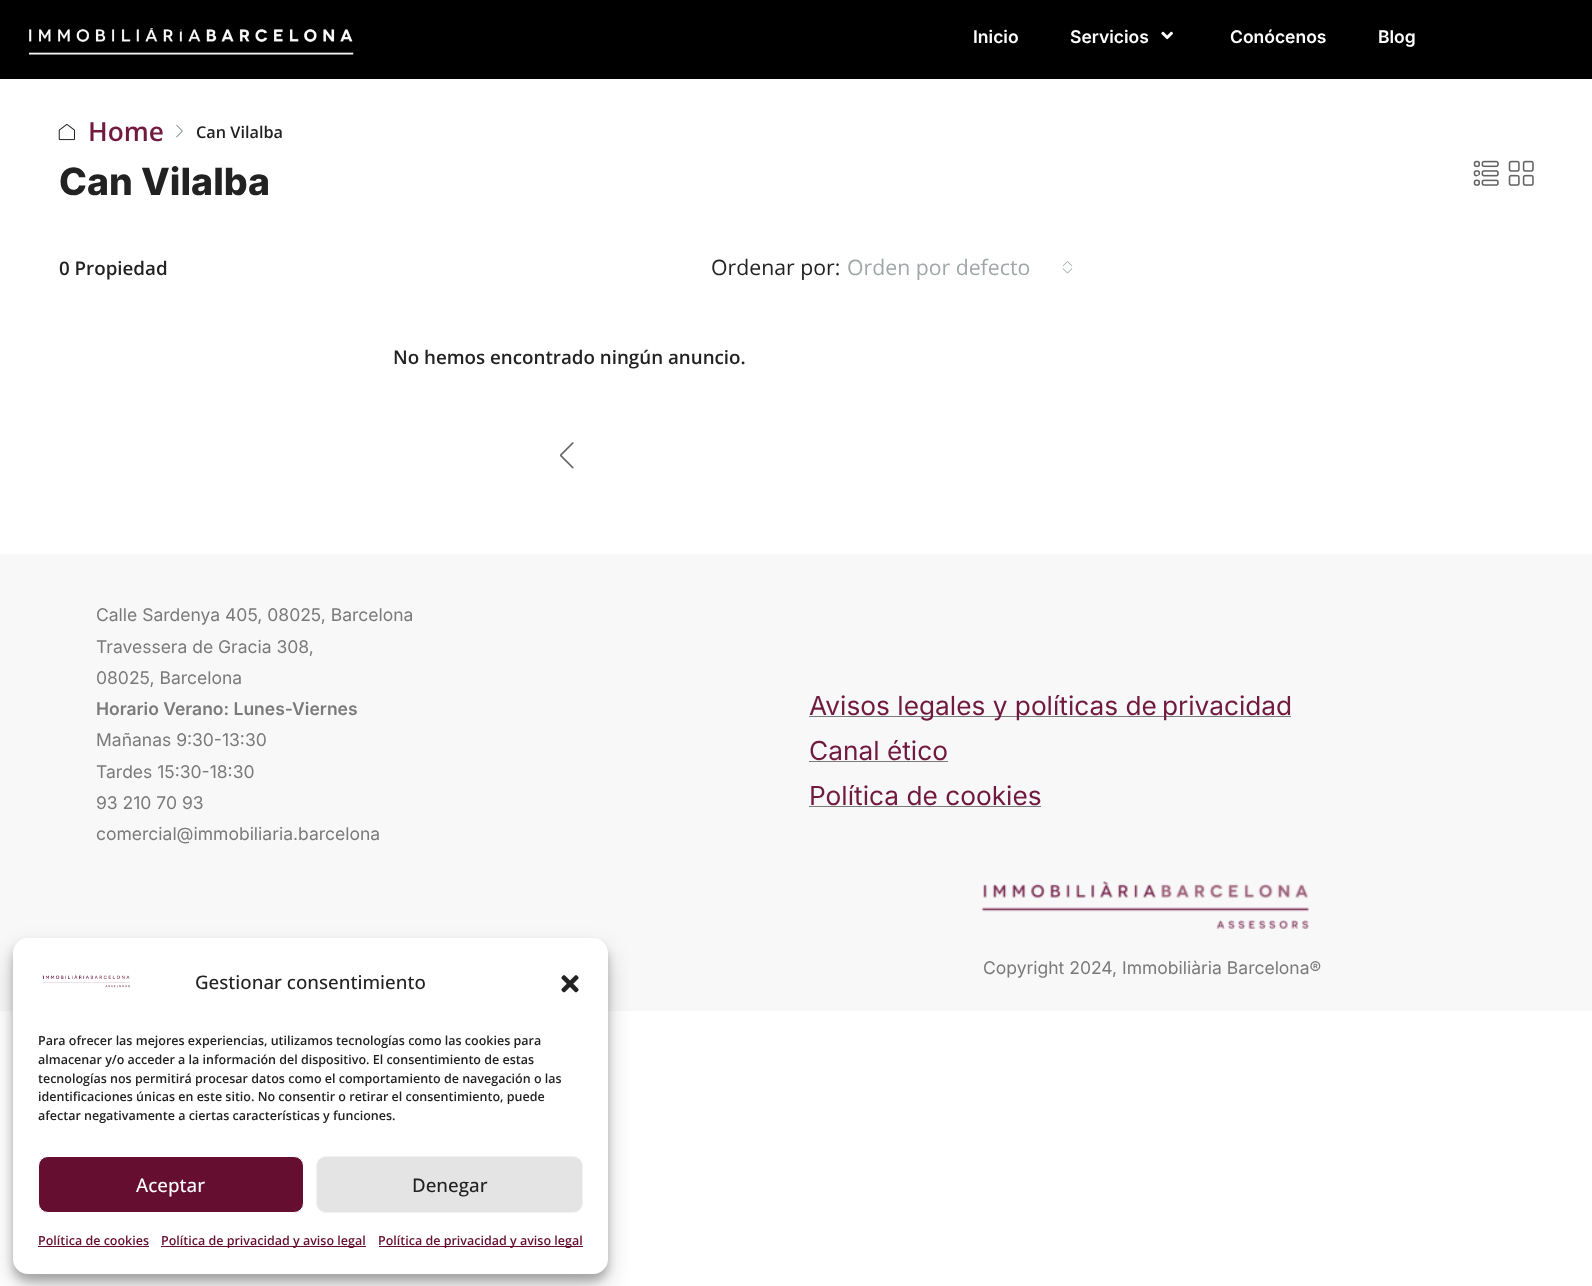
<?xml version="1.0" encoding="UTF-8"?>
<svg xmlns="http://www.w3.org/2000/svg" width="1592" height="1286">
    <defs>
        <filter id="blur1" x="-50%" y="-200%" width="200%" height="500%"><feGaussianBlur stdDeviation="4"/></filter>
        <filter id="blur2" x="-50%" y="-200%" width="200%" height="500%"><feGaussianBlur stdDeviation="12.5"/></filter>
    </defs>
    <rect width="100%" height="100%" fill="#FFFFFF"/>
    <rect x="0" y="0" width="1592" height="79" fill="#000000"/>
    <image x="29" y="28" width="325" height="27" href="img_01.png"/>
    <text x="973" y="43" font-family="Inter" font-size="17.5" font-weight="600" fill="#FFFFFF">Inicio</text>
    <text x="1070" y="43" font-family="Inter" font-size="17.5" font-weight="600" fill="#FFFFFF">Servicios</text>
    <image x="1161" y="31" width="12" height="9" href="img_02.png"/>
    <text x="1230" y="43" font-family="Inter" font-size="17.5" font-weight="600" fill="#FFFFFF">Conócenos</text>
    <text x="1378" y="43" font-family="Inter" font-size="17.5" font-weight="600" fill="#FFFFFF">Blog</text>
    <image x="58" y="123" width="17" height="18" href="img_03.png"/>
    <text x="88" y="141" font-family="Open Sans" font-size="26.25" font-weight="600" fill="#701A3F">Home</text>
    <image x="176" y="124" width="7" height="14" href="img_04.png"/>
    <text x="196" y="138" font-family="Open Sans" font-size="16.25" font-weight="600" fill="#222222">Can Vilalba</text>
    <text x="59" y="195" font-family="Inter" font-size="37.5" font-weight="800" fill="#222222">Can Vilalba</text>
    <image x="1473" y="160" width="26" height="26" href="img_05.png"/>
    <image x="1508" y="160" width="26" height="26" href="img_06.png"/>
    <text x="59" y="275" font-family="Open Sans" font-size="18.75" font-weight="600" fill="#222222">0 Propiedad</text>
    <text x="711" y="275" font-family="Open Sans" font-size="21.25" fill="#222222">Ordenar por:</text>
    <text x="847" y="275" font-family="Open Sans" font-size="21.25" fill="#A1A7A8">Orden por defecto</text>
    <image x="1062" y="261" width="11" height="13" href="img_07.png"/>
    <text x="393" y="364" font-family="Open Sans" font-size="18.75" font-weight="600" fill="#222222">No hemos encontrado ningún anuncio.</text>
    <image x="560" y="442" width="14" height="27" href="img_08.png"/>
    <rect x="0" y="554" width="1592" height="457" fill="#F8F8F8"/>
    <text font-family="Inter" font-size="17.5" fill="#7A7A7A">
        <tspan x="96" y="621">Calle Sardenya 405, 08025, Barcelona</tspan>
        <tspan x="96" y="653">Travessera de Gracia 308,</tspan>
        <tspan x="96" y="684">08025, Barcelona</tspan>
    </text>
    <text x="96" y="715" font-family="Inter" font-size="17.5" font-weight="600" fill="#7A7A7A">Horario Verano: Lunes-Viernes</text>
    <text font-family="Inter" font-size="17.5" fill="#7A7A7A">
        <tspan x="96" y="746">Mañanas 9:30-13:30</tspan>
        <tspan x="96" y="778">Tardes 15:30-18:30</tspan>
        <tspan x="96" y="809">93 210 70 93</tspan>
        <tspan x="96" y="840">comercial@immobiliaria.barcelona</tspan>
    </text>
    <rect x="809" y="716" width="482" height="1" fill="#7A7A7A"/>
    <text x="809" y="715" font-family="Inter" font-size="26.25" fill="#701A3F">Avisos legales y políticas de</text>
    <text x="1162" y="715" font-family="Inter" font-size="26.25" fill="#701A3F">privacidad</text>
    <text x="809" y="760" font-family="Inter" font-size="26.25" fill="#701A3F">Canal ético</text>
    <rect x="809" y="761" width="139" height="1" fill="#7A7A7A"/>
    <text x="809" y="805" font-family="Inter" font-size="26.25" fill="#701A3F">Política de cookies</text>
    <rect x="809" y="806" width="232" height="1" fill="#7A7A7A"/>
    <image x="981" y="881" width="328" height="48" href="img_09.png"/>
    <text x="983" y="974" font-family="Inter" font-size="17.5" fill="#7A7A7A">Copyright 2024, Immobiliària Barcelona®</text>
    <rect x="13" y="945" width="595" height="336" rx="15" fill="#000000" fill-opacity="0.23" filter="url(#blur1)"/>
    <rect x="13" y="950" width="595" height="336" rx="15" fill="#000000" fill-opacity="0.19" filter="url(#blur2)"/>
    <rect x="13" y="938" width="595" height="336" rx="15" fill="#FFFFFF"/>
    <image x="43" y="974" width="87" height="14" href="img_10.png"/>
    <text x="195" y="989" font-family="Open Sans" font-size="18.75" font-weight="500" fill="#222222">Gestionar consentimiento</text>
    <image x="561" y="975" width="18" height="18" href="img_11.png"/>
    <text font-family="Open Sans" font-size="12.5" font-weight="600" fill="#222222">
        <tspan x="38" y="1045">Para ofrecer las mejores experiencias, utilizamos tecnologías como las cookies para</tspan>
        <tspan x="38" y="1064">almacenar y/o acceder a la información del dispositivo. El consentimiento de estas</tspan>
        <tspan x="38" y="1083">tecnologías nos permitirá procesar datos como el comportamiento de navegación o las</tspan>
        <tspan x="38" y="1101">identificaciones únicas en este sitio. No consentir o retirar el consentimiento, puede</tspan>
        <tspan x="38" y="1120">afectar negativamente a ciertas características y funciones.</tspan>
    </text>
    <rect x="38.5" y="1156.5" width="265" height="56" rx="9.5" fill="#650E2F" stroke="#FFFFFF"/>
    <text x="136" y="1192" font-family="Open Sans" font-size="18.75" font-weight="500" fill="#FFFFFF">Aceptar</text>
    <rect x="316.5" y="1156.5" width="266" height="56" rx="9.5" fill="#E5E4E4" stroke="#F2F2F2"/>
    <text x="412" y="1192" font-family="Open Sans" font-size="18.75" font-weight="500" fill="#222222">Denegar</text>
    <text x="38" y="1245" font-family="Open Sans" font-size="12.5" font-weight="600" fill="#650E2F">Política de cookies</text>
    <rect x="38" y="1246" width="111" height="1" fill="#650E2F"/>
    <rect x="161" y="1246" width="205" height="1" fill="#650E2F"/>
    <text x="161" y="1245" font-family="Open Sans" font-size="12.5" font-weight="600" fill="#650E2F">Política de privacidad y aviso legal</text>
    <rect x="379" y="1246" width="204" height="1" fill="#650E2F"/>
    <text x="378" y="1245" font-family="Open Sans" font-size="12.5" font-weight="600" fill="#650E2F">Política de privacidad y aviso legal</text>
</svg>
